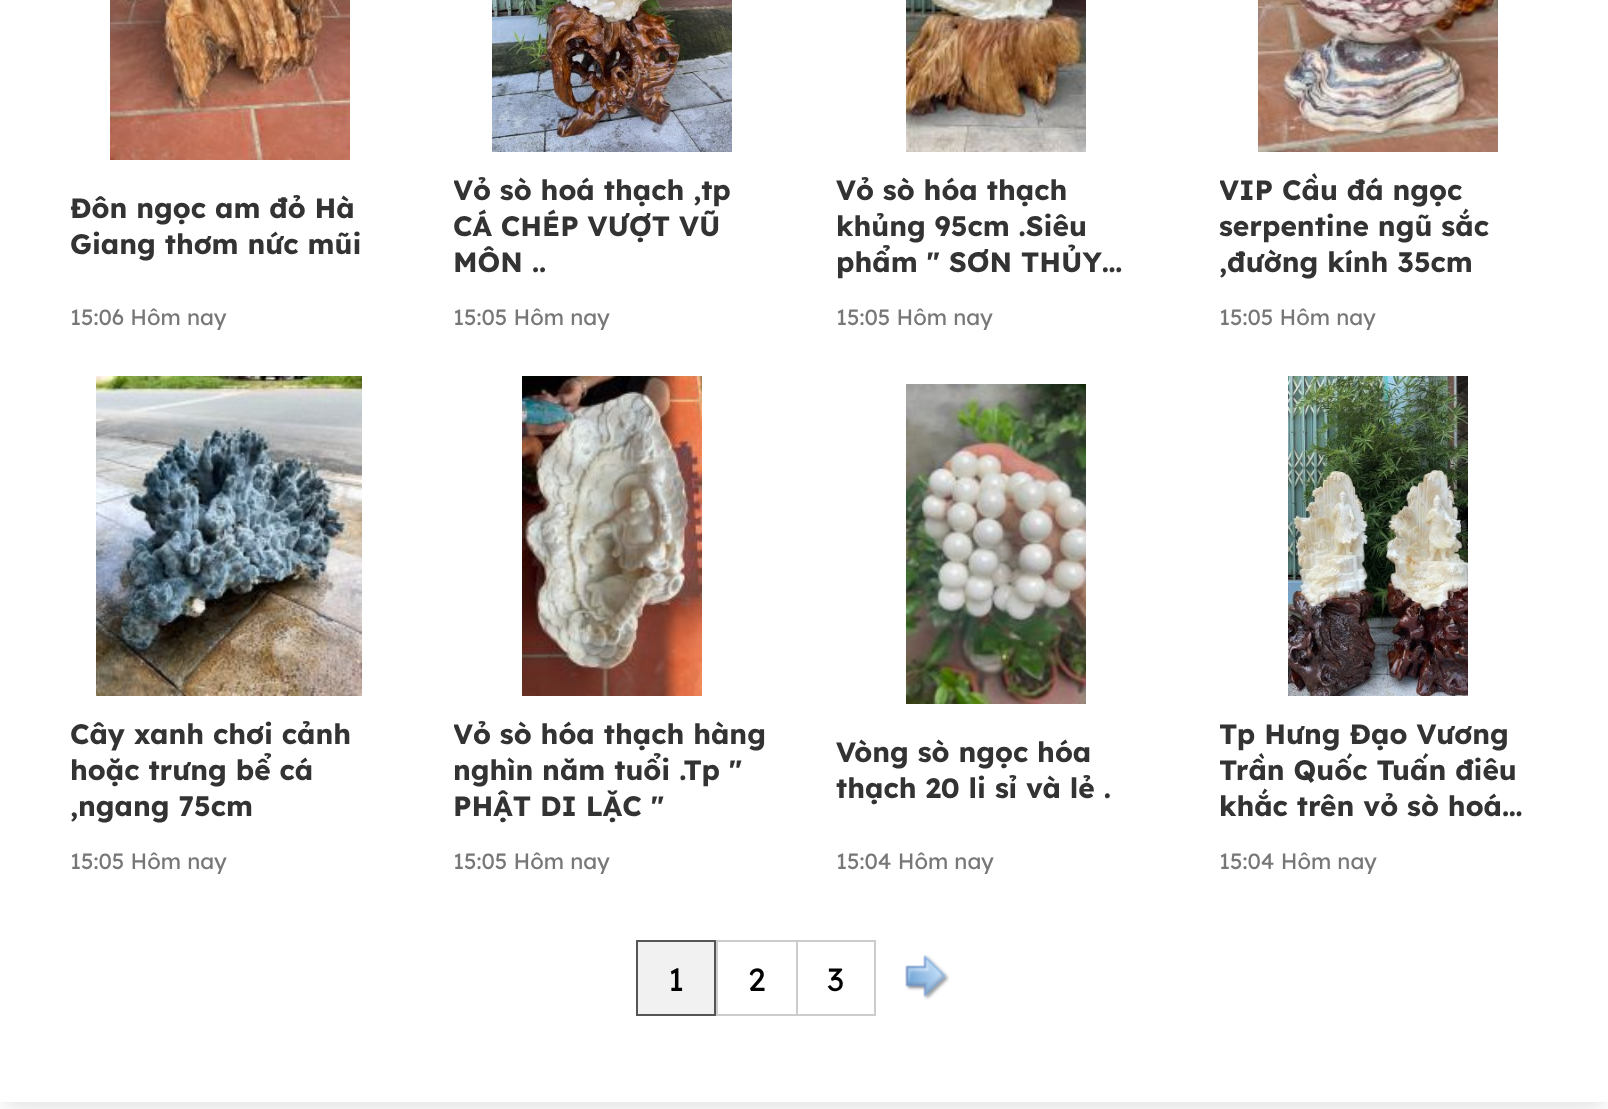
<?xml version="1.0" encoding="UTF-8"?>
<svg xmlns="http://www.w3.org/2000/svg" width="1608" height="1109">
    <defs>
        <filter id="blur1" x="-50%" y="-200%" width="200%" height="500%"><feGaussianBlur stdDeviation="10"/></filter>
        <clipPath id="clip1"><rect x="454" y="172" width="318" height="108"/></clipPath>
        <clipPath id="clip2"><rect x="1220" y="172" width="318" height="108"/></clipPath>
        <clipPath id="clip3"><rect x="454" y="716" width="318" height="108"/></clipPath>
        <clipPath id="clip4"><rect x="1220" y="716" width="318" height="108"/></clipPath>
    </defs>
    <rect width="100%" height="100%" fill="#FFFFFF"/>
    <rect x="0" y="-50" width="1608" height="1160" rx="20" fill="#000000" fill-opacity="0.1" filter="url(#blur1)"/>
    <rect x="0" y="0" width="1608" height="1102" fill="#FFFFFF"/>
    <image x="110" y="0" width="240" height="160" href="img_01.png"/>
    <text font-family="Lexend Deca" font-size="28" font-weight="700" fill="#333333">
        <tspan x="70" y="218">Đôn ngọc am đỏ Hà</tspan>
        <tspan x="70" y="254">Giang thơm nức mũi</tspan>
    </text>
    <text x="70" y="325" font-family="Lexend Deca" font-size="22" fill="#777777">15:06 Hôm nay</text>
    <image x="492" y="0" width="240" height="152" href="img_02.png"/>
    <g clip-path="url(#clip1)">
        <text x="453" y="200" font-family="Lexend Deca" font-size="28" font-weight="700" fill="#333333">Vỏ sò hoá thạch ,tp</text>
    </g>
    <text font-family="Lexend Deca" font-size="28" font-weight="700" fill="#333333">
        <tspan x="453" y="236">CÁ CHÉP VƯỢT VŨ</tspan>
        <tspan x="453" y="272">MÔN ..</tspan>
    </text>
    <text x="453" y="325" font-family="Lexend Deca" font-size="22" fill="#777777">15:05 Hôm nay</text>
    <image x="906" y="0" width="180" height="152" href="img_03.png"/>
    <text font-family="Lexend Deca" font-size="28" font-weight="700" fill="#333333">
        <tspan x="836" y="200">Vỏ sò hóa thạch</tspan>
        <tspan x="836" y="236">khủng 95cm .Siêu</tspan>
        <tspan x="836" y="272">phẩm " SƠN THỦY…</tspan>
    </text>
    <text x="836" y="325" font-family="Lexend Deca" font-size="22" fill="#777777">15:05 Hôm nay</text>
    <image x="1258" y="0" width="240" height="152" href="img_04.png"/>
    <g clip-path="url(#clip2)">
        <text x="1219" y="200" font-family="Lexend Deca" font-size="28" font-weight="700" fill="#333333">VIP</text>
    </g>
    <text x="1282" y="200" font-family="Lexend Deca" font-size="28" font-weight="700" fill="#333333">Cầu đá ngọc</text>
    <text font-family="Lexend Deca" font-size="28" font-weight="700" fill="#333333">
        <tspan x="1219" y="236">serpentine ngũ sắc</tspan>
        <tspan x="1219" y="272">,đường kính 35cm</tspan>
    </text>
    <text x="1219" y="325" font-family="Lexend Deca" font-size="22" fill="#777777">15:05 Hôm nay</text>
    <image x="96" y="376" width="266" height="320" href="img_05.png"/>
    <text font-family="Lexend Deca" font-size="28" font-weight="700" fill="#333333">
        <tspan x="70" y="744">Cây xanh chơi cảnh</tspan>
        <tspan x="70" y="780">hoặc trưng bể cá</tspan>
        <tspan x="70" y="816">,ngang 75cm</tspan>
    </text>
    <text x="70" y="869" font-family="Lexend Deca" font-size="22" fill="#777777">15:05 Hôm nay</text>
    <image x="522" y="376" width="180" height="320" href="img_06.png"/>
    <g clip-path="url(#clip3)">
        <text x="453" y="744" font-family="Lexend Deca" font-size="28" font-weight="700" fill="#333333">Vỏ sò hóa thạch hàng</text>
    </g>
    <text font-family="Lexend Deca" font-size="28" font-weight="700" fill="#333333">
        <tspan x="453" y="780">nghìn năm tuổi .Tp "</tspan>
        <tspan x="453" y="816">PHẬT DI LẶC "</tspan>
    </text>
    <text x="453" y="869" font-family="Lexend Deca" font-size="22" fill="#777777">15:05 Hôm nay</text>
    <image x="906" y="384" width="180" height="320" href="img_07.png"/>
    <text font-family="Lexend Deca" font-size="28" font-weight="700" fill="#333333">
        <tspan x="836" y="762">Vòng sò ngọc hóa</tspan>
        <tspan x="836" y="798">thạch 20 li sỉ và lẻ .</tspan>
    </text>
    <text x="836" y="869" font-family="Lexend Deca" font-size="22" fill="#777777">15:04 Hôm nay</text>
    <image x="1288" y="376" width="180" height="320" href="img_08.png"/>
    <g clip-path="url(#clip4)">
        <text font-family="Lexend Deca" font-size="28" font-weight="700" fill="#333333">
            <tspan x="1219" y="744">Tp Hưng Đạo Vương</tspan>
            <tspan x="1219" y="780">Trần Quốc Tuấn điêu</tspan>
        </text>
    </g>
    <text x="1219" y="816" font-family="Lexend Deca" font-size="28" font-weight="700" fill="#333333">khắc trên vỏ sò hoá…</text>
    <text x="1219" y="869" font-family="Lexend Deca" font-size="22" fill="#777777">15:04 Hôm nay</text>
    <rect x="637" y="941" width="78" height="74" fill="#F1F1F1" stroke="#555555" stroke-width="2"/>
    <text x="668" y="991" font-family="Lexend Deca" font-size="32" fill="#000000">1</text>
    <rect x="716" y="940" width="80" height="2" fill="#CCCCCC"/>
    <rect x="716" y="1014" width="80" height="2" fill="#CCCCCC"/>
    <rect x="716" y="940" width="2" height="76" fill="#CCCCCC"/>
    <text x="748" y="991" font-family="Lexend Deca" font-size="32" fill="#000000">2</text>
    <rect x="797" y="941" width="78" height="74" fill="none" stroke="#CCCCCC" stroke-width="2"/>
    <text x="827" y="991" font-family="Lexend Deca" font-size="32" fill="#000000">3</text>
    <image x="905" y="954" width="45" height="46" href="img_09.png"/>
</svg>
